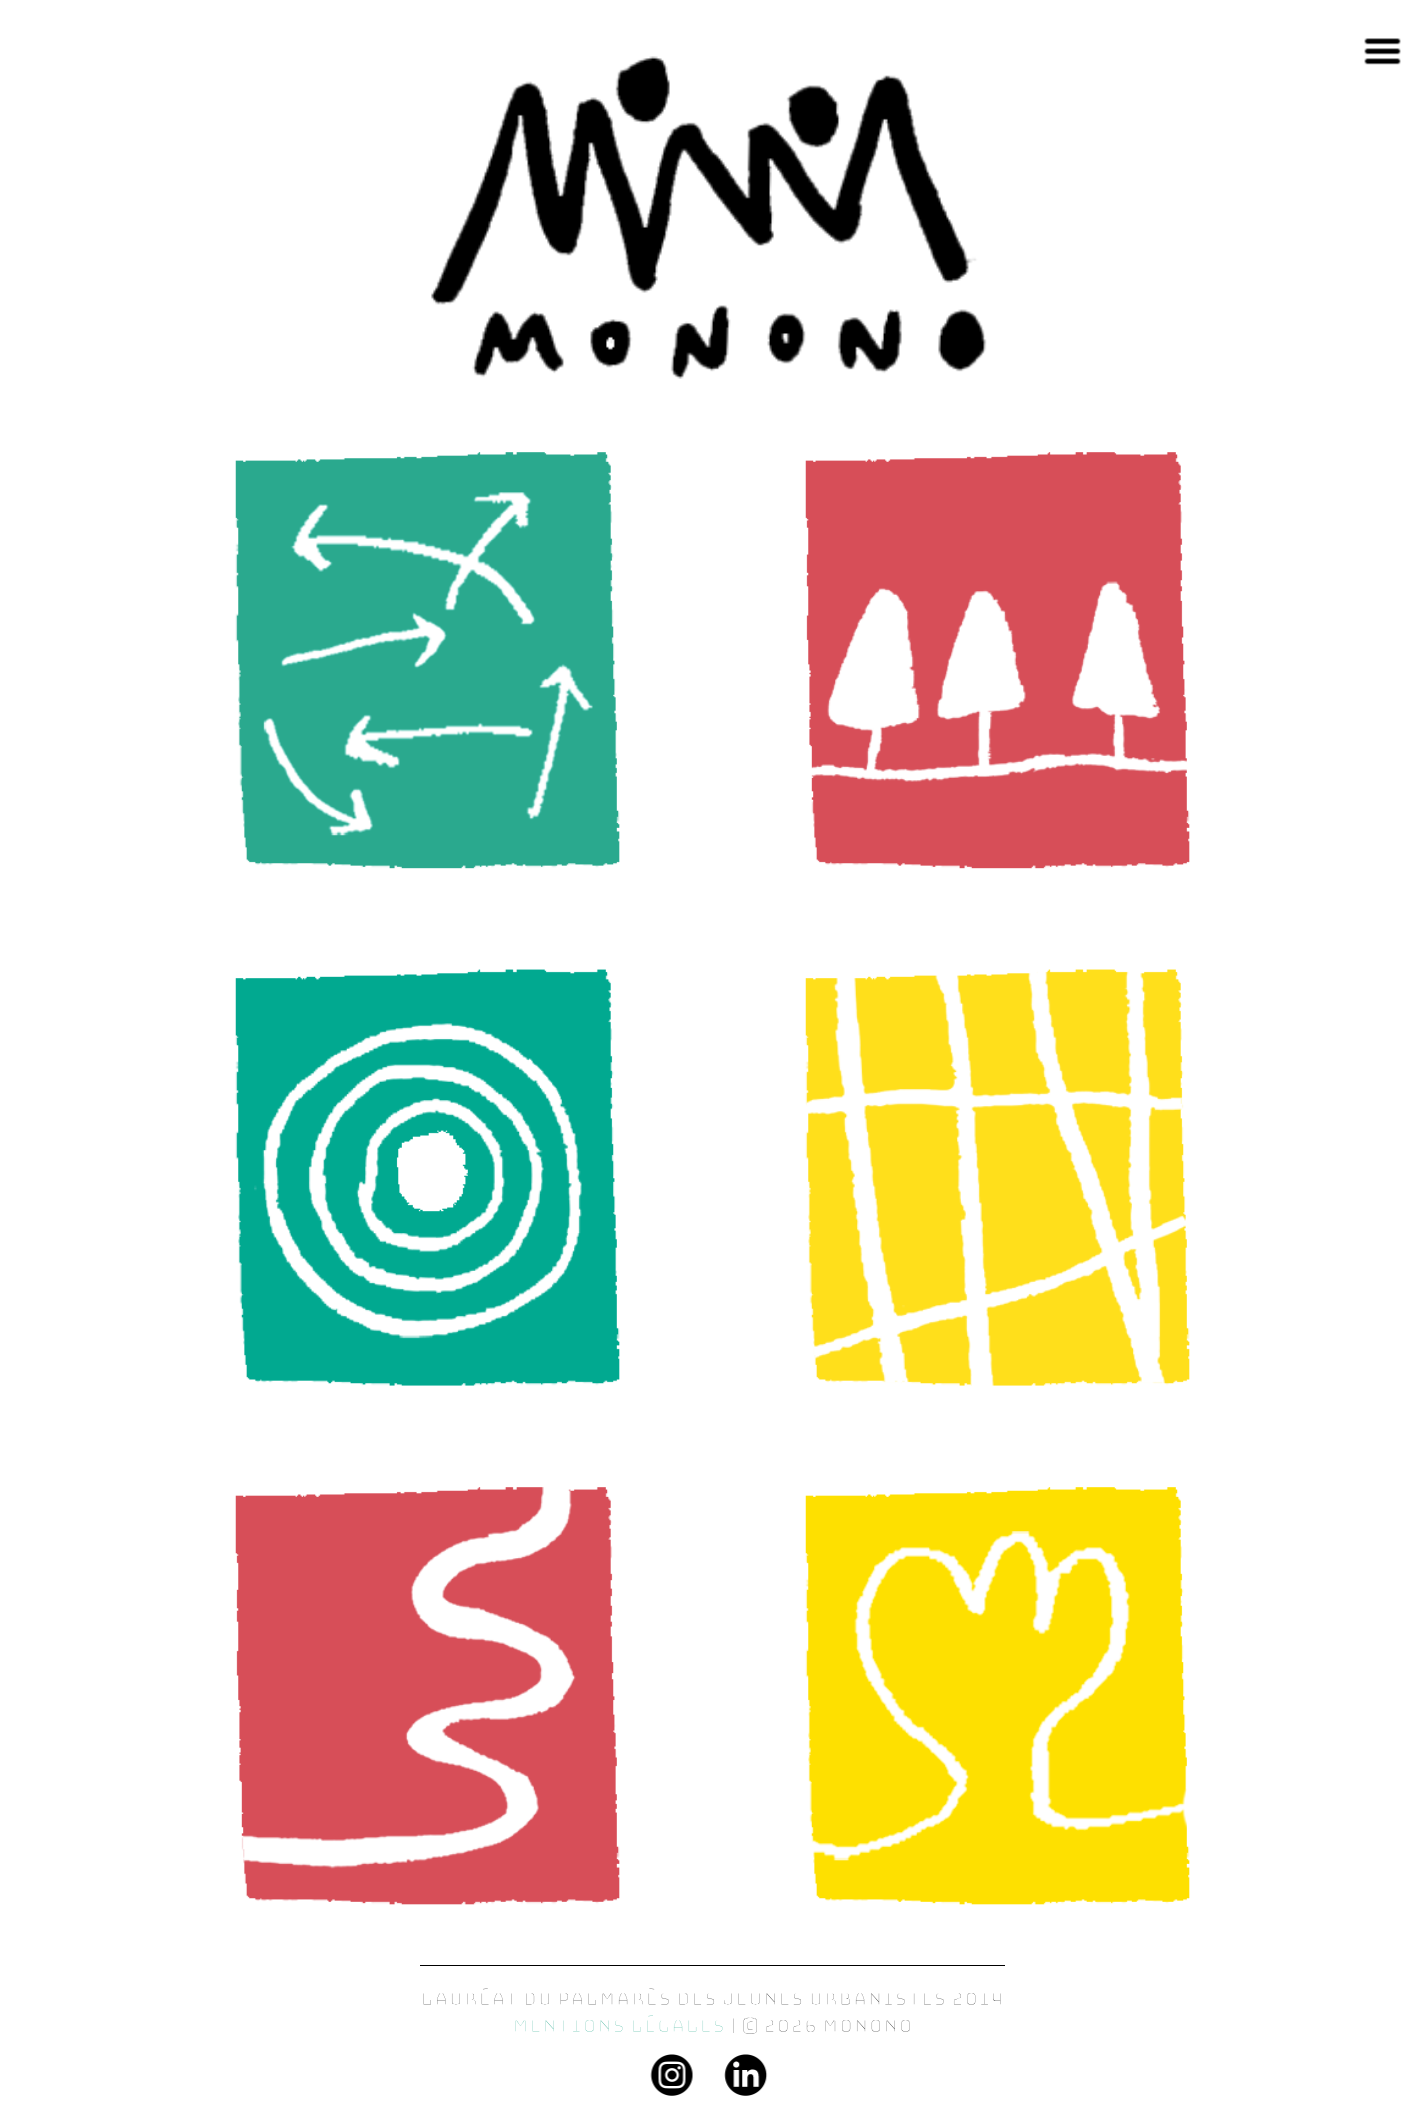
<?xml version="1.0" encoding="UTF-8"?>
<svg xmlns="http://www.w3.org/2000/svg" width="1425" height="2118">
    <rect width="100%" height="100%" fill="#FFFFFF"/>
    <image x="1364" y="38" width="37" height="27" href="img_01.png"/>
    <image x="431" y="56" width="556" height="323" href="img_02.png"/>
    <image x="235" y="452" width="385" height="417" href="img_03.png"/>
    <image x="805" y="452" width="385" height="417" href="img_04.png"/>
    <image x="235" y="969" width="385" height="417" href="img_05.png"/>
    <image x="805" y="969" width="385" height="417" href="img_06.png"/>
    <image x="235" y="1487" width="385" height="418" href="img_07.png"/>
    <image x="805" y="1487" width="385" height="418" href="img_08.png"/>
    <rect x="420" y="1965" width="585" height="1" fill="#000000"/>
    <text x="420" y="2006" font-family="Bungee Hairline" font-size="20" fill="#000000">Lauréat du palmarès des jeunes urbanistes 2014</text>
    <text x="512" y="2033" font-family="Bungee Hairline" font-size="20" fill="#2AA98E">Mentions légales</text>
    <text x="730" y="2033" font-family="Bungee Hairline" font-size="20" fill="#000000">| © 2026 Monono</text>
    <image x="650" y="2054" width="43" height="42" href="img_09.png"/>
    <image x="724" y="2054" width="44" height="42" href="img_10.png"/>
</svg>
